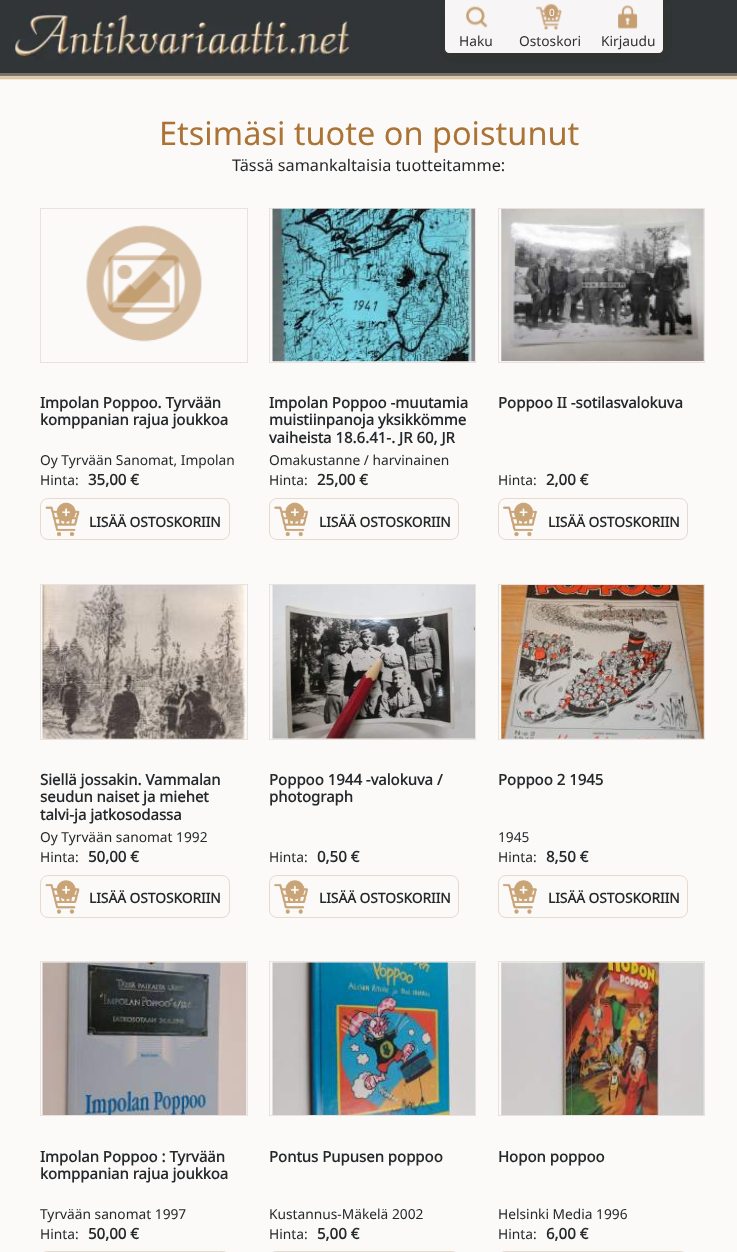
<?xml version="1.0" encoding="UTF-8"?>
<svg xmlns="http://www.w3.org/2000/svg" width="737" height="1252">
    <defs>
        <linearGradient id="g1" gradientUnits="userSpaceOnUse" x1="369" y1="75" x2="369" y2="80"><stop offset="0" stop-color="#4C4E4E"/><stop offset="0.33" stop-color="#F4D7B5"/><stop offset="0.67" stop-color="#D5BA9A"/><stop offset="1" stop-color="#FFFFFF"/></linearGradient>
        <filter id="blur1" x="-50%" y="-200%" width="200%" height="500%"><feGaussianBlur stdDeviation="4"/></filter>
    </defs>
    <rect width="100%" height="100%" fill="#FBFAF9"/>
    <rect x="0" y="0" width="737" height="73" fill="#313537"/>
    <rect x="0" y="73" width="737" height="2" fill="#7A7065"/>
    <image x="12" y="12" width="337" height="49" href="img_01.png"/>
    <rect x="0" y="75" width="737" height="5" fill="url(#g1)"/>
    <rect x="448" y="3" width="217" height="52" rx="4" fill="#382F21" fill-opacity="0.54" filter="url(#blur1)"/>
    <path d="M 445 0 H 663 V 49 C 663 51 661 53 659 53 H 449 C 447 53 445 51 445 49 Z" fill="#F7F5F5"/>
    <image x="466" y="6" width="22" height="22" href="img_02.png"/>
    <text x="459" y="46" font-family="Noto Sans" font-size="13.75" fill="#303030">Haku</text>
    <image x="536" y="3" width="26" height="27" href="img_03.png"/>
    <text x="549" y="16" font-family="Noto Sans" font-size="10" fill="#FFFFFF">0</text>
    <text x="519" y="46" font-family="Noto Sans" font-size="13.75" fill="#303030">Ostoskori</text>
    <image x="618" y="5" width="20" height="24" href="img_04.png"/>
    <text x="601" y="46" font-family="Noto Sans" font-size="13.75" fill="#303030">Kirjaudu</text>
    <text x="159" y="145" font-family="Noto Sans" font-size="32.5" fill="#AB7334">Etsimäsi tuote on poistunut</text>
    <text x="232" y="171" font-family="Noto Sans" font-size="16.25" fill="#25292B">Tässä samankaltaisia tuotteitamme:</text>
    <rect x="40.5" y="208.5" width="207" height="154" fill="none" stroke="#E7E2DC"/>
    <image x="86" y="225" width="116" height="117" href="img_05.png"/>
    <text font-family="Noto Sans" font-size="15" font-weight="700" fill="#25292B">
        <tspan x="40" y="408">Impolan Poppoo. Tyrvään</tspan>
        <tspan x="40" y="425">komppanian rajua joukkoa</tspan>
    </text>
    <text font-family="Noto Sans" font-size="13.75" fill="#25292B">
        <tspan x="40" y="465">Oy Tyrvään Sanomat, Impolan</tspan>
        <tspan x="40" y="485">Hinta:</tspan>
    </text>
    <text x="88" y="485" font-family="Noto Sans" font-size="15" font-weight="700" fill="#25292B">35,00 €</text>
    <rect x="40.5" y="498.5" width="189" height="41" rx="7.5" fill="none" stroke="#E8DACB"/>
    <image x="45" y="502" width="35" height="35" href="img_06.png"/>
    <text x="89" y="527" font-family="Noto Sans" font-size="13.75" font-weight="700" fill="#25292B">LISÄÄ OSTOSKORIIN</text>
    <rect x="269.5" y="208.5" width="206" height="154" fill="none" stroke="#E7E2DC"/>
    <image x="272" y="208" width="203" height="154" href="img_07.png"/>
    <text font-family="Noto Sans" font-size="15" font-weight="700" fill="#25292B">
        <tspan x="269" y="408">Impolan Poppoo -muutamia</tspan>
        <tspan x="269" y="425">muistiinpanoja yksikkömme</tspan>
        <tspan x="269" y="443">vaiheista 18.6.41-. JR 60, JR</tspan>
    </text>
    <text font-family="Noto Sans" font-size="13.75" fill="#25292B">
        <tspan x="269" y="465">Omakustanne / harvinainen</tspan>
        <tspan x="269" y="485">Hinta:</tspan>
    </text>
    <text x="317" y="485" font-family="Noto Sans" font-size="15" font-weight="700" fill="#25292B">25,00 €</text>
    <rect x="269.5" y="498.5" width="189" height="41" rx="7.5" fill="none" stroke="#E8DACB"/>
    <image x="274" y="502" width="34" height="35" href="img_08.png"/>
    <text x="319" y="527" font-family="Noto Sans" font-size="13.75" font-weight="700" fill="#25292B">LISÄÄ OSTOSKORIIN</text>
    <rect x="498.5" y="208.5" width="206" height="154" fill="none" stroke="#E7E2DC"/>
    <image x="501" y="209" width="203" height="153" href="img_09.png"/>
    <text x="498" y="408" font-family="Noto Sans" font-size="15" font-weight="700" fill="#25292B">Poppoo II -sotilasvalokuva</text>
    <text x="498" y="485" font-family="Noto Sans" font-size="13.75" fill="#25292B">Hinta:</text>
    <text x="546" y="485" font-family="Noto Sans" font-size="15" font-weight="700" fill="#25292B">2,00 €</text>
    <rect x="498.5" y="498.5" width="189" height="41" rx="7.5" fill="none" stroke="#E8DACB"/>
    <image x="502" y="502" width="35" height="35" href="img_10.png"/>
    <text x="548" y="527" font-family="Noto Sans" font-size="13.75" font-weight="700" fill="#25292B">LISÄÄ OSTOSKORIIN</text>
    <rect x="40.5" y="584.5" width="207" height="155" fill="none" stroke="#E7E2DC"/>
    <image x="42" y="585" width="205" height="154" href="img_11.png"/>
    <text font-family="Noto Sans" font-size="15" font-weight="700" fill="#25292B">
        <tspan x="40" y="785">Siellä jossakin. Vammalan</tspan>
        <tspan x="40" y="802">seudun naiset ja miehet</tspan>
        <tspan x="40" y="820">talvi-ja jatkosodassa</tspan>
    </text>
    <text font-family="Noto Sans" font-size="13.75" fill="#25292B">
        <tspan x="40" y="842">Oy Tyrvään sanomat 1992</tspan>
        <tspan x="40" y="862">Hinta:</tspan>
    </text>
    <text x="88" y="862" font-family="Noto Sans" font-size="15" font-weight="700" fill="#25292B">50,00 €</text>
    <rect x="40.5" y="875.5" width="189" height="42" rx="7.5" fill="none" stroke="#E8DACB"/>
    <image x="45" y="880" width="35" height="34" href="img_12.png"/>
    <text x="89" y="903" font-family="Noto Sans" font-size="13.75" font-weight="700" fill="#25292B">LISÄÄ OSTOSKORIIN</text>
    <rect x="269.5" y="584.5" width="206" height="155" fill="none" stroke="#E7E2DC"/>
    <image x="272" y="585" width="203" height="154" href="img_13.png"/>
    <text font-family="Noto Sans" font-size="15" font-weight="700" fill="#25292B">
        <tspan x="269" y="785">Poppoo 1944 -valokuva /</tspan>
        <tspan x="269" y="802">photograph</tspan>
    </text>
    <text x="269" y="862" font-family="Noto Sans" font-size="13.75" fill="#25292B">Hinta:</text>
    <text x="317" y="862" font-family="Noto Sans" font-size="15" font-weight="700" fill="#25292B">0,50 €</text>
    <rect x="269.5" y="875.5" width="189" height="42" rx="7.5" fill="none" stroke="#E8DACB"/>
    <image x="274" y="880" width="34" height="34" href="img_14.png"/>
    <text x="319" y="903" font-family="Noto Sans" font-size="13.75" font-weight="700" fill="#25292B">LISÄÄ OSTOSKORIIN</text>
    <rect x="498.5" y="584.5" width="206" height="155" fill="none" stroke="#E7E2DC"/>
    <image x="501" y="585" width="203" height="154" href="img_15.png"/>
    <text x="498" y="785" font-family="Noto Sans" font-size="15" font-weight="700" fill="#25292B">Poppoo 2 1945</text>
    <text font-family="Noto Sans" font-size="13.75" fill="#25292B">
        <tspan x="498" y="842">1945</tspan>
        <tspan x="498" y="862">Hinta:</tspan>
    </text>
    <text x="546" y="862" font-family="Noto Sans" font-size="15" font-weight="700" fill="#25292B">8,50 €</text>
    <rect x="498.5" y="875.5" width="189" height="42" rx="7.5" fill="none" stroke="#E8DACB"/>
    <image x="502" y="880" width="35" height="34" href="img_16.png"/>
    <text x="548" y="903" font-family="Noto Sans" font-size="13.75" font-weight="700" fill="#25292B">LISÄÄ OSTOSKORIIN</text>
    <rect x="40.5" y="961.5" width="207" height="154" fill="none" stroke="#E7E2DC"/>
    <image x="42" y="962" width="205" height="153" href="img_17.png"/>
    <text font-family="Noto Sans" font-size="15" font-weight="700" fill="#25292B">
        <tspan x="40" y="1162">Impolan Poppoo : Tyrvään</tspan>
        <tspan x="40" y="1179">komppanian rajua joukkoa</tspan>
    </text>
    <text font-family="Noto Sans" font-size="13.75" fill="#25292B">
        <tspan x="40" y="1219">Tyrvään sanomat 1997</tspan>
        <tspan x="40" y="1239">Hinta:</tspan>
    </text>
    <text x="88" y="1239" font-family="Noto Sans" font-size="15" font-weight="700" fill="#25292B">50,00 €</text>
    <rect x="40.5" y="1251.5" width="189" height="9" rx="7.5" fill="none" stroke="#E8DACB"/>
    <rect x="269.5" y="961.5" width="206" height="154" fill="none" stroke="#E7E2DC"/>
    <image x="272" y="962" width="203" height="153" href="img_18.png"/>
    <text x="269" y="1162" font-family="Noto Sans" font-size="15" font-weight="700" fill="#25292B">Pontus Pupusen poppoo</text>
    <text font-family="Noto Sans" font-size="13.75" fill="#25292B">
        <tspan x="269" y="1219">Kustannus-Mäkelä 2002</tspan>
        <tspan x="269" y="1239">Hinta:</tspan>
    </text>
    <text x="317" y="1239" font-family="Noto Sans" font-size="15" font-weight="700" fill="#25292B">5,00 €</text>
    <rect x="269.5" y="1251.5" width="189" height="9" rx="7.5" fill="none" stroke="#E8DACB"/>
    <rect x="498.5" y="961.5" width="206" height="154" fill="none" stroke="#E7E2DC"/>
    <image x="501" y="962" width="203" height="153" href="img_19.png"/>
    <text x="498" y="1162" font-family="Noto Sans" font-size="15" font-weight="700" fill="#25292B">Hopon poppoo</text>
    <text font-family="Noto Sans" font-size="13.75" fill="#25292B">
        <tspan x="498" y="1219">Helsinki Media 1996</tspan>
        <tspan x="498" y="1239">Hinta:</tspan>
    </text>
    <text x="546" y="1239" font-family="Noto Sans" font-size="15" font-weight="700" fill="#25292B">6,00 €</text>
    <rect x="498.5" y="1251.5" width="189" height="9" rx="7.5" fill="none" stroke="#E8DACB"/>
</svg>
